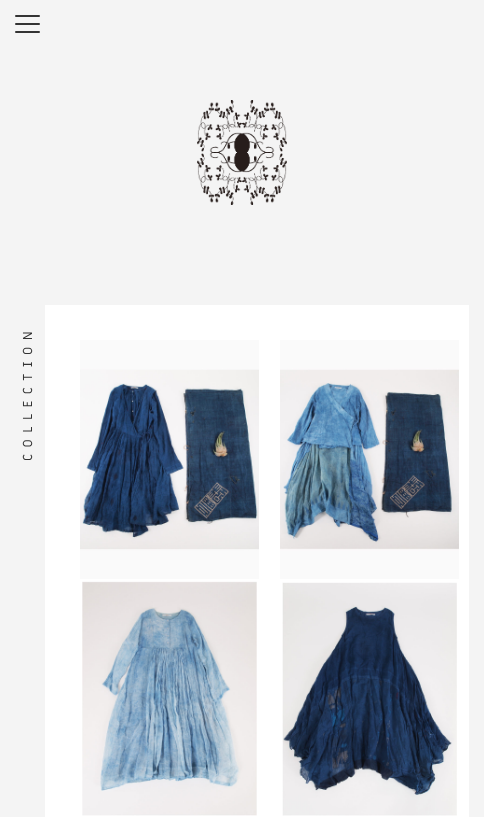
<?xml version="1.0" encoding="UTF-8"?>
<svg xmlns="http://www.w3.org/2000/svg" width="484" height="817">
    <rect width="100%" height="100%" fill="#F4F4F4"/>
    <rect x="15" y="15" width="25" height="2" rx="1" fill="#333333"/>
    <rect x="15" y="23" width="25" height="2" rx="1" fill="#333333"/>
    <rect x="15" y="31" width="25" height="2" rx="1" fill="#333333"/>
    <image x="197" y="100" width="90" height="105" href="img_01.png"/>
    <text x="32" y="461" transform="rotate(-90 32 461)" font-family="Miriam Libre" font-size="13" letter-spacing="6.5" fill="#333333">COLLECTION</text>
    <rect x="45" y="305" width="424" height="512" fill="#FFFFFF"/>
    <image x="80" y="340" width="179" height="239" href="img_02.png"/>
    <image x="280" y="340" width="179" height="239" href="img_03.png"/>
    <image x="82" y="581" width="175" height="235" href="img_04.png"/>
    <image x="282" y="582" width="175" height="234" href="img_05.png"/>
</svg>
